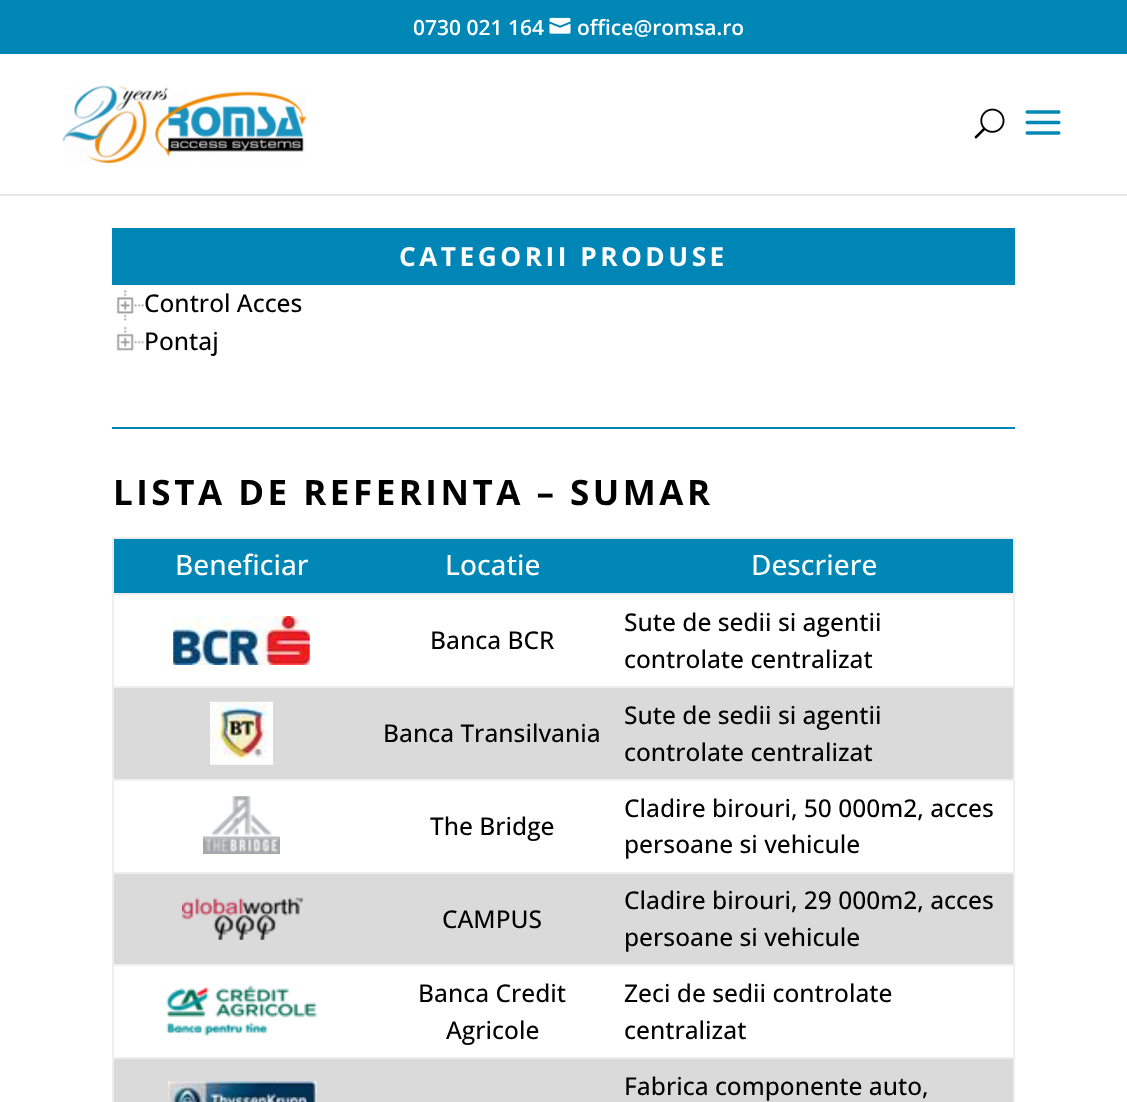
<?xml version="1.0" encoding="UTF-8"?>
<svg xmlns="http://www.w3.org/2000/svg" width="1127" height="1102">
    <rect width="100%" height="100%" fill="#FFFFFF"/>
    <rect x="0" y="0" width="1127" height="54" fill="#0087B6"/>
    <text x="413" y="35" font-family="Open Sans" font-size="21" font-weight="600" fill="#FFFFFF">0730 021 164</text>
    <image x="549" y="17" width="22" height="17" href="img_01.png"/>
    <text x="577" y="35" font-family="Open Sans" font-size="21" font-weight="600" fill="#FFFFFF">office@romsa.ro</text>
    <rect x="0" y="194" width="1127" height="2" fill="#E6E6E6"/>
    <image x="62" y="85" width="245" height="78" href="img_02.png"/>
    <image x="974" y="108" width="31" height="31" href="img_03.png"/>
    <image x="1025" y="110" width="36" height="25" href="img_04.png"/>
    <rect x="112" y="228" width="903" height="57" fill="#0086B6"/>
    <text x="399" y="266" font-family="Open Sans" font-size="26.25" font-weight="700" letter-spacing="3.5" fill="#FFFFFF">CATEGORII PRODUSE</text>
    <image x="116" y="290" width="28" height="31" href="img_05.png"/>
    <text x="144" y="312" font-family="Open Sans" font-size="24.5" font-weight="500" fill="#000000">Control Acces</text>
    <image x="116" y="327" width="28" height="24" href="img_06.png"/>
    <text x="144" y="350" font-family="Open Sans" font-size="24.5" font-weight="500" fill="#000000">Pontaj</text>
    <rect x="112" y="427" width="903" height="2" fill="#0087B6"/>
    <text x="113" y="505" font-family="Open Sans" font-size="35" font-weight="700" letter-spacing="3.5" fill="#000000">LISTA DE REFERINTA – SUMAR</text>
    <rect x="112" y="537" width="903" height="2" fill="#EEEEEE"/>
    <rect x="1013" y="537" width="2" height="565" fill="#EEEEEE"/>
    <rect x="112" y="537" width="2" height="565" fill="#EEEEEE"/>
    <rect x="114" y="539" width="899" height="54" fill="#0087B6"/>
    <text x="175" y="575" font-family="Open Sans" font-size="28" font-weight="500" fill="#FFFFFF">Beneficiar</text>
    <text x="445" y="575" font-family="Open Sans" font-size="28" font-weight="500" fill="#FFFFFF">Locatie</text>
    <text x="751" y="575" font-family="Open Sans" font-size="28" font-weight="500" fill="#FFFFFF">Descriere</text>
    <image x="173" y="616" width="137" height="49" href="img_07.png"/>
    <text x="430" y="649" font-family="Open Sans" font-size="24.5" font-weight="500" fill="#000000">Banca BCR</text>
    <rect x="112" y="593" width="903" height="2" fill="#EEEEEE"/>
    <text font-family="Open Sans" font-size="24.5" font-weight="500" fill="#000000">
        <tspan x="624" y="631">Sute de sedii si agentii</tspan>
        <tspan x="624" y="668">controlate centralizat</tspan>
    </text>
    <rect x="114" y="688" width="899" height="91" fill="#DADADA"/>
    <image x="210" y="701" width="63" height="64" href="img_08.png"/>
    <text x="383" y="742" font-family="Open Sans" font-size="24.5" font-weight="500" fill="#000000">Banca Transilvania</text>
    <rect x="112" y="686" width="903" height="2" fill="#EEEEEE"/>
    <text font-family="Open Sans" font-size="24.5" font-weight="500" fill="#000000">
        <tspan x="624" y="724">Sute de sedii si agentii</tspan>
        <tspan x="624" y="761">controlate centralizat</tspan>
    </text>
    <image x="203" y="796" width="77" height="58" href="img_09.png"/>
    <text x="430" y="835" font-family="Open Sans" font-size="24.5" font-weight="500" fill="#000000">The Bridge</text>
    <rect x="112" y="779" width="903" height="2" fill="#EEEEEE"/>
    <text font-family="Open Sans" font-size="24.5" font-weight="500" fill="#000000">
        <tspan x="624" y="817">Cladire birouri, 50 000m2, acces</tspan>
        <tspan x="624" y="853">persoane si vehicule</tspan>
    </text>
    <rect x="114" y="874" width="899" height="90" fill="#DADADA"/>
    <image x="182" y="897" width="121" height="43" href="img_10.png"/>
    <text x="442" y="928" font-family="Open Sans" font-size="24.5" font-weight="500" fill="#000000">CAMPUS</text>
    <rect x="112" y="872" width="903" height="2" fill="#EEEEEE"/>
    <text font-family="Open Sans" font-size="24.5" font-weight="500" fill="#000000">
        <tspan x="624" y="909">Cladire birouri, 29 000m2, acces</tspan>
        <tspan x="624" y="946">persoane si vehicule</tspan>
    </text>
    <image x="166" y="985" width="151" height="51" href="img_11.png"/>
    <text x="418" y="1002" font-family="Open Sans" font-size="24.5" font-weight="500" fill="#000000">Banca Credit</text>
    <text x="446" y="1039" font-family="Open Sans" font-size="24.5" font-weight="500" fill="#000000">Agricole</text>
    <rect x="112" y="964" width="903" height="2" fill="#EEEEEE"/>
    <text font-family="Open Sans" font-size="24.5" font-weight="500" fill="#000000">
        <tspan x="624" y="1002">Zeci de sedii controlate</tspan>
        <tspan x="624" y="1039">centralizat</tspan>
    </text>
    <rect x="114" y="1059" width="899" height="43" fill="#DADADA"/>
    <image x="168" y="1081" width="149" height="21" href="img_12.png"/>
    <rect x="112" y="1057" width="903" height="2" fill="#EEEEEE"/>
    <text x="624" y="1095" font-family="Open Sans" font-size="24.5" font-weight="500" fill="#000000">Fabrica componente auto,</text>
</svg>
